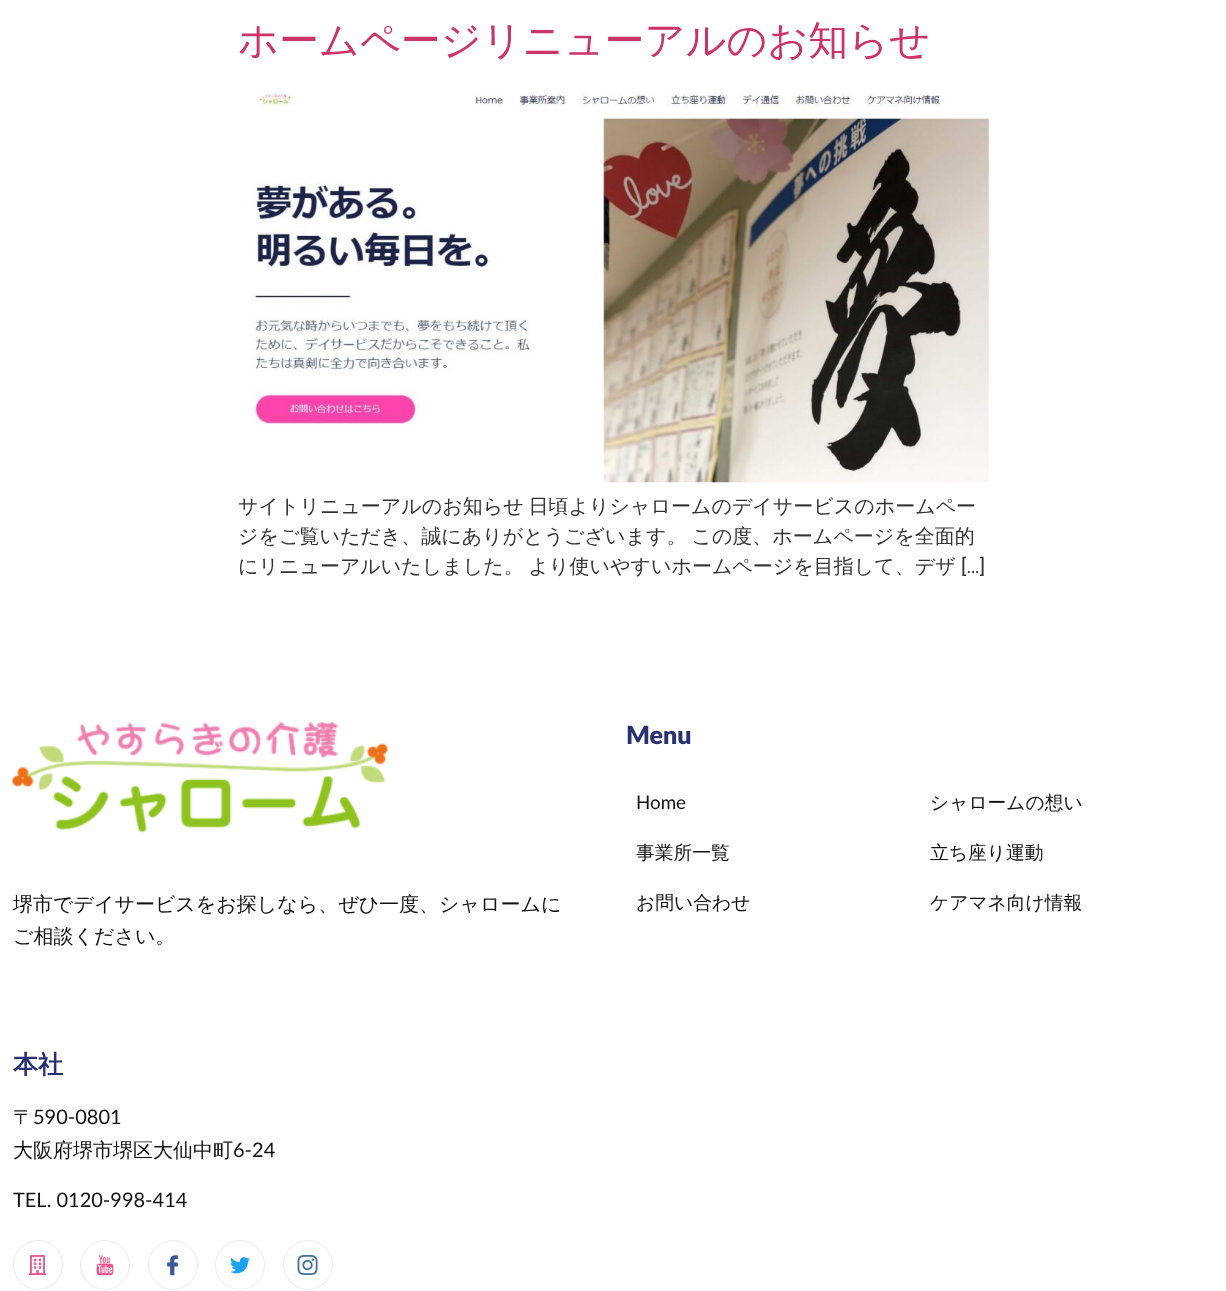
<?xml version="1.0" encoding="UTF-8"?>
<svg xmlns="http://www.w3.org/2000/svg" width="1226" height="1291">
    <rect width="100%" height="100%" fill="#FFFFFF"/>
    <text x="238" y="54" font-family="WenQuanYi Zen Hei" font-size="40" font-weight="500" fill="#CC3366">ホームページリニューアルのお知らせ</text>
    <image x="250" y="92" width="739" height="391" href="img_01.png"/>
    <text font-family="WenQuanYi Zen Hei" font-size="20" font-weight="500" fill="#333333">
        <tspan x="238" y="513" word-spacing="-1">サイトリニューアルのお知らせ 日頃よりシャロームのデイサービスのホームペー</tspan>
        <tspan x="238" y="543" word-spacing="-1">ジをご覧いただき、誠にありがとうございます。 この度、ホームページを全面的</tspan>
        <tspan x="238" y="573" word-spacing="-1">にリニューアルいたしました。 より使いやすいホームページを目指して、デザ</tspan>
    </text>
    <text x="961" y="573" font-family="Roboto" font-size="20" fill="#333333">[…]</text>
    <text x="626" y="744" font-family="Lato" font-size="25" font-weight="800" fill="#273171">Menu</text>
    <text x="636" y="809" font-family="Lato" font-size="18.75" fill="#111111">Home</text>
    <text x="636" y="859" font-family="WenQuanYi Zen Hei" font-size="18.75" font-weight="500" fill="#111111">事業所一覧</text>
    <text x="636" y="909" font-family="WenQuanYi Zen Hei" font-size="18.75" font-weight="500" fill="#111111">お問い合わせ</text>
    <text x="930" y="809" font-family="WenQuanYi Zen Hei" font-size="18.75" font-weight="500" fill="#111111">シャロームの想い</text>
    <text x="930" y="859" font-family="WenQuanYi Zen Hei" font-size="18.75" font-weight="500" fill="#111111">立ち座り運動</text>
    <text x="930" y="909" font-family="WenQuanYi Zen Hei" font-size="18.75" font-weight="500" fill="#111111">ケアマネ向け情報</text>
    <image x="12" y="722" width="376" height="111" href="img_02.png"/>
    <text font-family="WenQuanYi Zen Hei" font-size="20" font-weight="500" fill="#111111">
        <tspan x="13" y="911">堺市でデイサービスをお探しなら、ぜひ一度、シャロームに</tspan>
        <tspan x="13" y="943">ご相談ください。</tspan>
    </text>
    <text x="13" y="1073" font-family="WenQuanYi Zen Hei" font-size="25" font-weight="700" fill="#273171">本社</text>
    <text x="13" y="1124" font-family="WenQuanYi Zen Hei" font-size="20" font-weight="500" fill="#111111">〒</text>
    <text x="33" y="1124" font-family="Lato" font-size="20" fill="#111111">590-0801</text>
    <text x="13" y="1157" font-family="WenQuanYi Zen Hei" font-size="20" font-weight="500" fill="#111111">大阪府堺市堺区大仙中町</text>
    <text x="233" y="1157" font-family="Lato" font-size="20" fill="#111111">6-24</text>
    <text x="13" y="1207" font-family="Lato" font-size="20" fill="#111111">TEL. 0120-998-414</text>
    <circle cx="38" cy="1265" r="24.5" fill="none" stroke="#EAEBF1"/>
    <image x="28" y="1255" width="19" height="20" href="img_03.png"/>
    <circle cx="105" cy="1265" r="24.5" fill="none" stroke="#EAEBF1"/>
    <image x="96" y="1255" width="18" height="21" href="img_04.png"/>
    <circle cx="173" cy="1265" r="24.5" fill="none" stroke="#EAEBF1"/>
    <image x="167" y="1255" width="11" height="21" href="img_05.png"/>
    <circle cx="240" cy="1265" r="24.5" fill="none" stroke="#EAEBF1"/>
    <image x="230" y="1257" width="20" height="17" href="img_06.png"/>
    <circle cx="308" cy="1265" r="24.5" fill="none" stroke="#EAEBF1"/>
    <image x="297" y="1255" width="21" height="20" href="img_07.png"/>
</svg>
